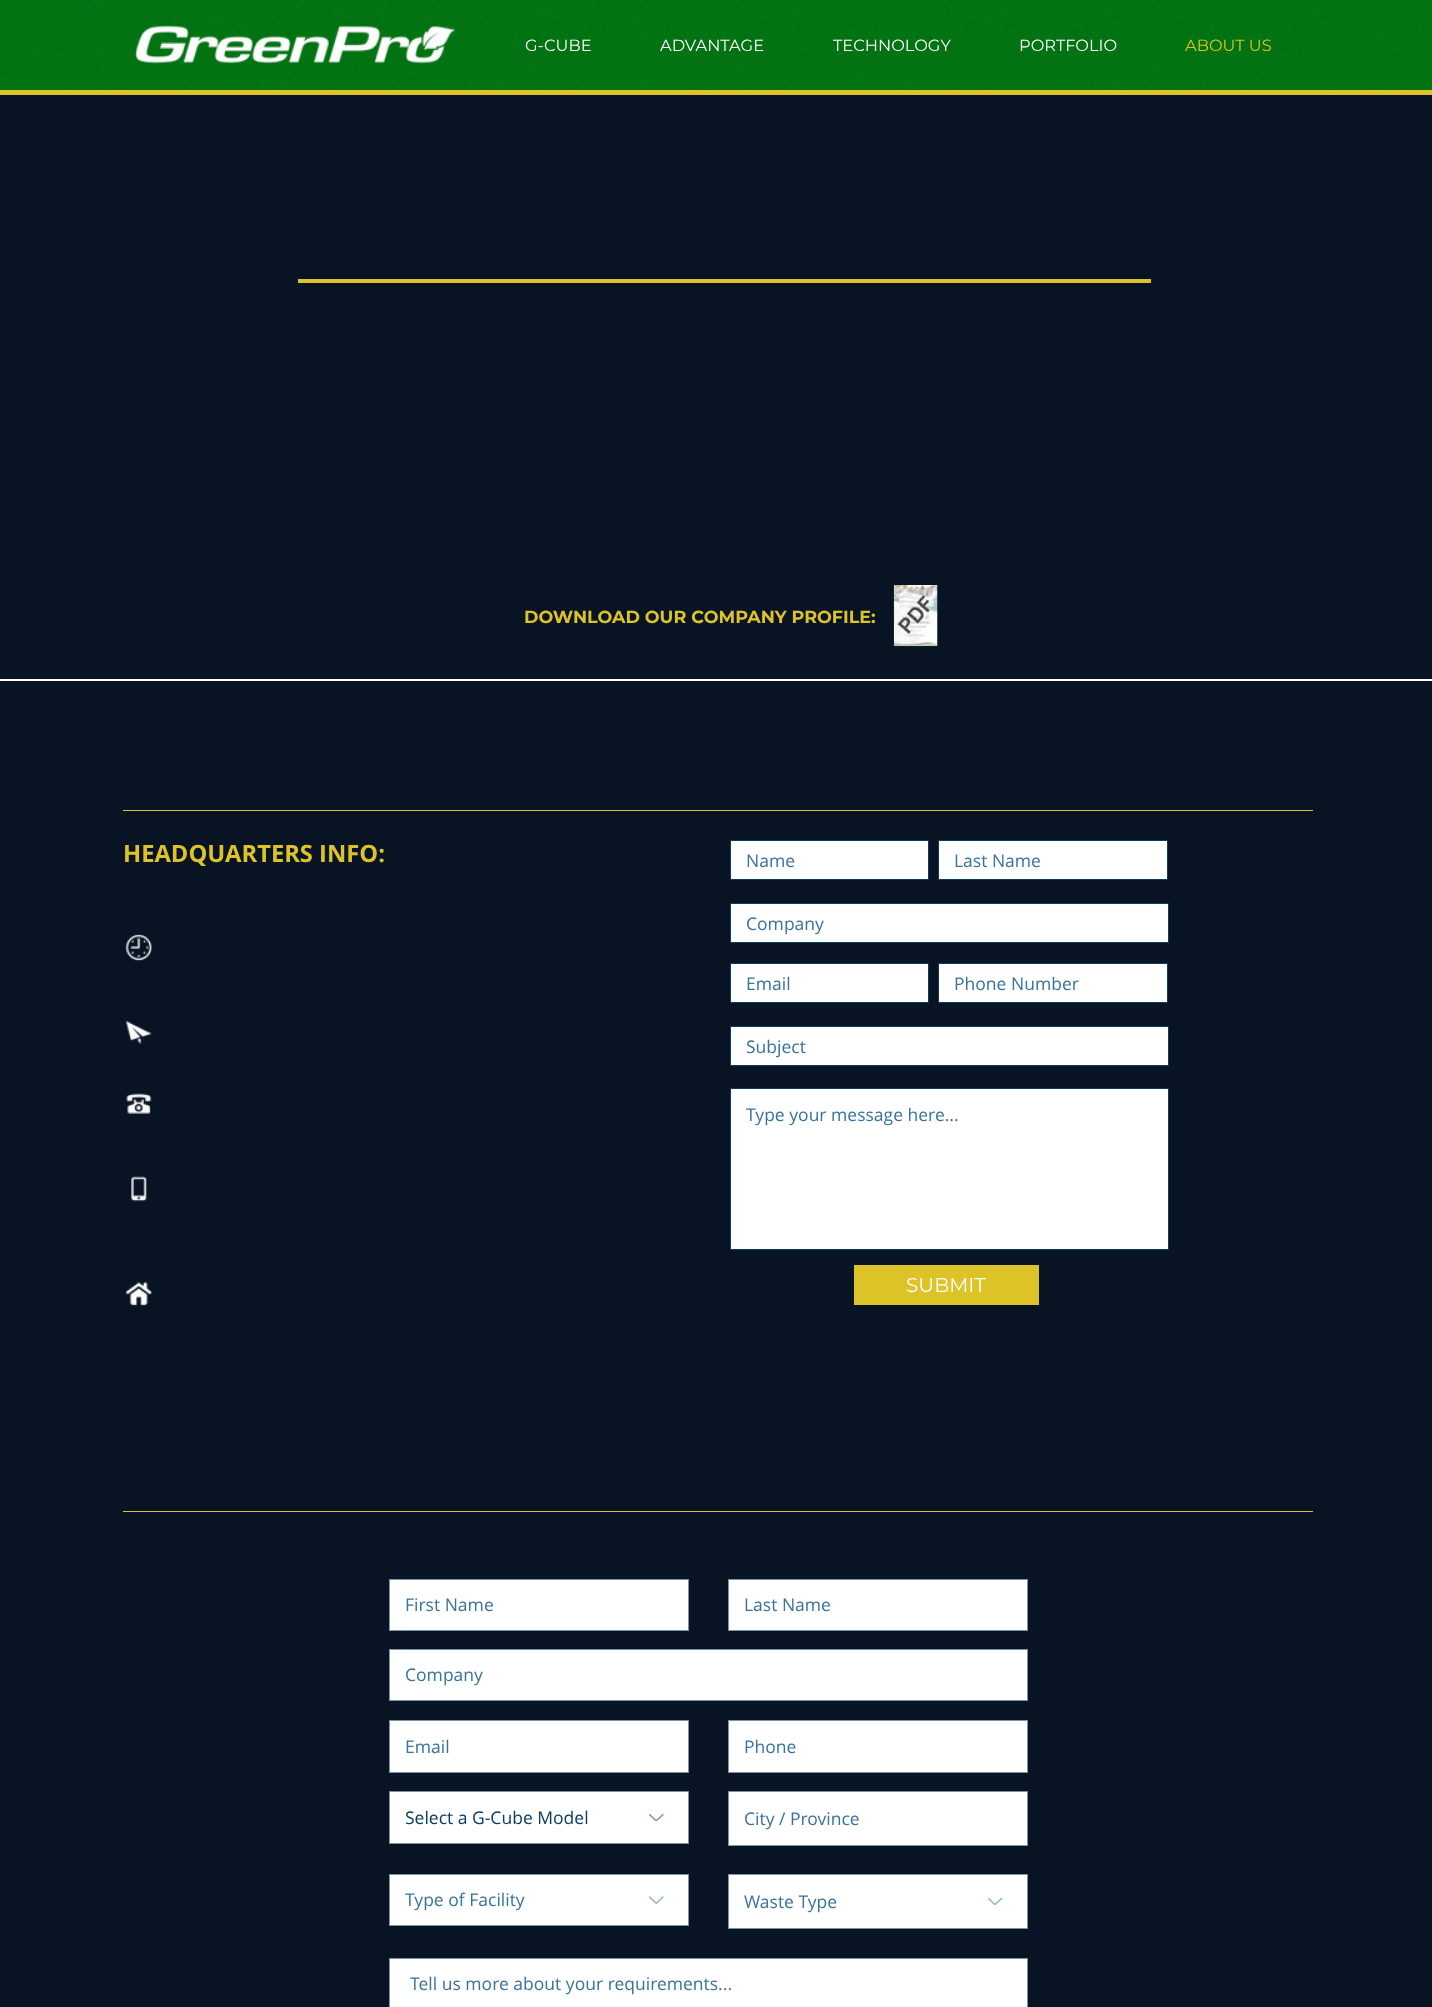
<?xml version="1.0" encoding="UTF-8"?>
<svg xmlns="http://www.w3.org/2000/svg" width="1432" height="2007">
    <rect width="100%" height="100%" fill="#FFFFFF"/>
    <rect x="0" y="0" width="1432" height="90" fill="#007511"/>
    <image x="0" y="0" width="1432" height="90" href="img_01.png"/>
    <image x="135" y="25" width="320" height="39" href="img_02.png"/>
    <text x="525" y="51" font-family="Montserrat" font-size="16.25" fill="#FFFFFF">G-CUBE</text>
    <text x="660" y="51" font-family="Montserrat" font-size="16.25" fill="#FFFFFF">ADVANTAGE</text>
    <text x="833" y="51" font-family="Montserrat" font-size="16.25" fill="#FFFFFF">TECHNOLOGY</text>
    <text x="1019" y="51" font-family="Montserrat" font-size="16.25" fill="#FFFFFF">PORTFOLIO</text>
    <text x="1185" y="51" font-family="Montserrat" font-size="16.25" fill="#DEC328">ABOUT US</text>
    <rect x="0" y="90" width="1432" height="5" fill="#DEC328"/>
    <rect x="0" y="95" width="1432" height="584" fill="#081423"/>
    <rect x="298" y="279" width="853" height="4" fill="#DEC328"/>
    <text x="524" y="623" font-family="Montserrat" font-size="17.5" font-weight="700" fill="#DEC328">DOWNLOAD OUR COMPANY PROFILE:</text>
    <image x="893" y="585" width="45" height="62" href="img_03.png"/>
    <rect x="0" y="681" width="1432" height="1326" fill="#081423"/>
    <rect x="123" y="810" width="1190" height="1" fill="#DEC328"/>
    <text x="123" y="862" font-family="Open Sans" font-size="23.75" font-weight="700" fill="#DEC328">HEADQUARTERS INFO:</text>
    <rect x="730.5" y="840.5" width="198" height="39" fill="#FFFFFF" stroke="#0C3C60"/>
    <text x="746" y="867" font-family="Open Sans" font-size="17.5" fill="#39729B">Name</text>
    <rect x="938.5" y="840.5" width="229" height="39" fill="#FFFFFF" stroke="#0C3C60"/>
    <text x="954" y="867" font-family="Open Sans" font-size="17.5" fill="#39729B">Last Name</text>
    <rect x="730.5" y="903.5" width="438" height="39" fill="#FFFFFF" stroke="#0C3C60"/>
    <text x="746" y="930" font-family="Open Sans" font-size="17.5" fill="#39729B">Company</text>
    <rect x="730.5" y="963.5" width="198" height="39" fill="#FFFFFF" stroke="#0C3C60"/>
    <text x="746" y="990" font-family="Open Sans" font-size="17.5" fill="#39729B">Email</text>
    <rect x="938.5" y="963.5" width="229" height="39" fill="#FFFFFF" stroke="#0C3C60"/>
    <text x="954" y="990" font-family="Open Sans" font-size="17.5" fill="#39729B">Phone Number</text>
    <rect x="730.5" y="1026.5" width="438" height="39" fill="#FFFFFF" stroke="#0C3C60"/>
    <text x="746" y="1053" font-family="Open Sans" font-size="17.5" fill="#39729B">Subject</text>
    <rect x="730.5" y="1088.5" width="438" height="161" fill="#FFFFFF" stroke="#0C3C60"/>
    <text x="746" y="1121" font-family="Open Sans" font-size="17.5" fill="#39729B">Type your message here...</text>
    <rect x="854" y="1265" width="185" height="40" fill="#DEC328"/>
    <text x="906" y="1292" font-family="Montserrat" font-size="20" fill="#FFFFFF">SUBMIT</text>
    <image x="125" y="934" width="28" height="27" href="img_04.png"/>
    <image x="125" y="1021" width="27" height="23" href="img_05.png"/>
    <image x="126" y="1093" width="26" height="21" href="img_06.png"/>
    <image x="131" y="1176" width="16" height="26" href="img_07.png"/>
    <image x="125" y="1282" width="27" height="24" href="img_08.png"/>
    <rect x="123" y="1511" width="1190" height="1" fill="#DEC328"/>
    <rect x="389.5" y="1579.5" width="299" height="51" fill="#FFFFFF" stroke="#7994A8"/>
    <text x="405" y="1611" font-family="Open Sans" font-size="17.5" fill="#39729B">First Name</text>
    <rect x="728.5" y="1579.5" width="299" height="51" fill="#FFFFFF" stroke="#7994A8"/>
    <text x="744" y="1611" font-family="Open Sans" font-size="17.5" fill="#39729B">Last Name</text>
    <rect x="389.5" y="1649.5" width="638" height="51" fill="#FFFFFF" stroke="#7994A8"/>
    <text x="405" y="1681" font-family="Open Sans" font-size="17.5" fill="#39729B">Company</text>
    <rect x="389.5" y="1720.5" width="299" height="52" fill="#FFFFFF" stroke="#7994A8"/>
    <text x="405" y="1753" font-family="Open Sans" font-size="17.5" fill="#39729B">Email</text>
    <rect x="728.5" y="1720.5" width="299" height="52" fill="#FFFFFF" stroke="#7994A8"/>
    <text x="744" y="1753" font-family="Open Sans" font-size="17.5" fill="#39729B">Phone</text>
    <rect x="389.5" y="1791.5" width="299" height="52" fill="#FFFFFF" stroke="#7994A8"/>
    <text x="405" y="1824" font-family="Open Sans" font-size="17.5" fill="#0C3C60">Select a G-Cube Model</text>
    <image x="649" y="1814" width="15" height="7" href="img_09.png"/>
    <rect x="728.5" y="1791.5" width="299" height="54" fill="#FFFFFF" stroke="#7994A8"/>
    <text x="744" y="1825" font-family="Open Sans" font-size="17.5" fill="#39729B">City / Province</text>
    <rect x="389.5" y="1874.5" width="299" height="51" fill="#FFFFFF" stroke="#7994A8"/>
    <text x="405" y="1906" font-family="Open Sans" font-size="17.5" fill="#39729B">Type of Facility</text>
    <image x="649" y="1896" width="15" height="8" href="img_10.png"/>
    <rect x="728.5" y="1874.5" width="299" height="54" fill="#FFFFFF" stroke="#7994A8"/>
    <text x="744" y="1908" font-family="Open Sans" font-size="17.5" fill="#39729B">Waste Type</text>
    <image x="988" y="1898" width="15" height="7" href="img_11.png"/>
    <rect x="389.5" y="1958.5" width="638" height="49" fill="#FFFFFF" stroke="#7994A8"/>
    <text x="410" y="1990" font-family="Open Sans" font-size="17.5" fill="#39729B">Tell us more about your requirements...</text>
</svg>
